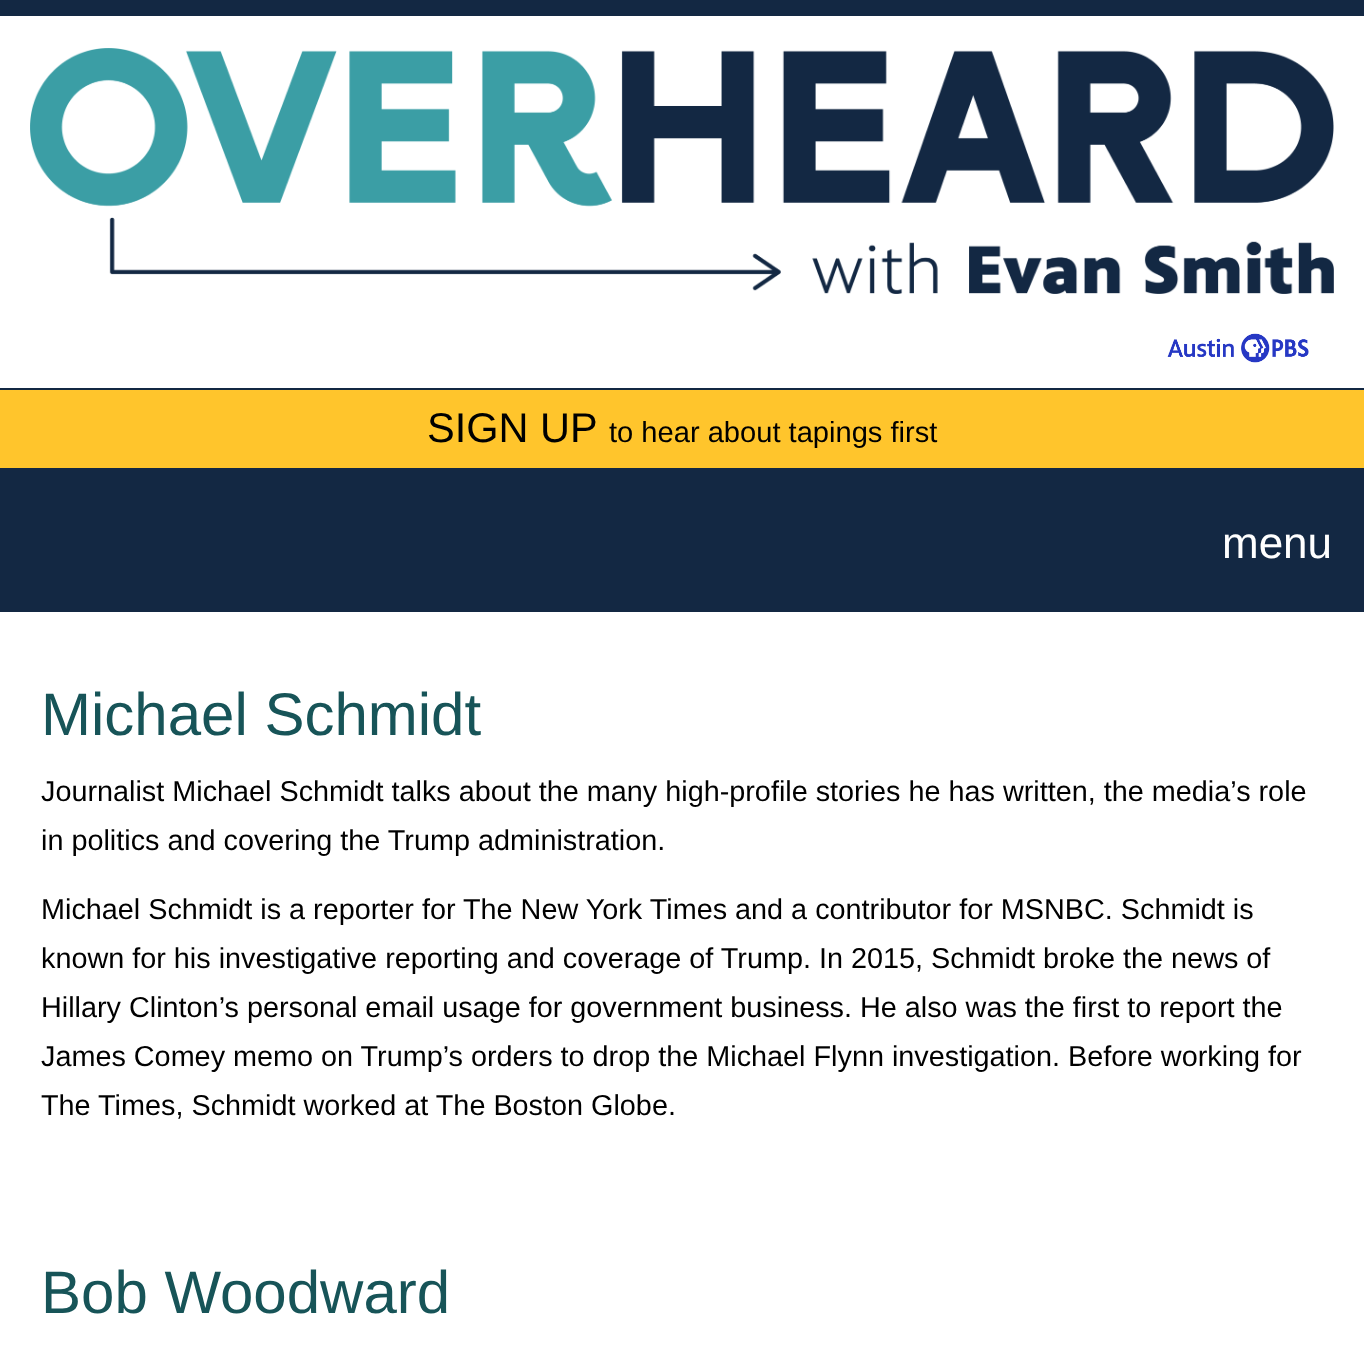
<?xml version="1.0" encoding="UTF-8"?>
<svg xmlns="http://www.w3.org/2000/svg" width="1364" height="1362">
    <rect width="100%" height="100%" fill="#132843"/>
    <rect x="0" y="16" width="1364" height="372" fill="#FFFFFF"/>
    <image x="30" y="48" width="1304" height="246" href="img_01.png"/>
    <image x="1167" y="333" width="142" height="30" href="img_02.png"/>
    <rect x="0" y="390" width="1364" height="78" fill="#FFC52C"/>
    <text x="427" y="442" font-family="Liberation Sans" font-size="41.5" fill="#000000">SIGN UP</text>
    <text x="609" y="442" font-family="Liberation Sans" font-size="29.1" fill="#000000">to hear about tapings first</text>
    <text x="1222" y="558" font-family="Liberation Sans" font-size="44" fill="#FFFFFF">menu</text>
    <rect x="0" y="612" width="1364" height="750" fill="#FFFFFF"/>
    <text x="41" y="735" font-family="Liberation Sans" font-size="60" fill="#175458">Michael Schmidt</text>
    <text font-family="Liberation Sans" font-size="28.8" fill="#000000">
        <tspan x="41" y="801">Journalist Michael Schmidt talks about the many high-profile stories he has written, the media’s role</tspan>
        <tspan x="41" y="850">in politics and covering the Trump administration.</tspan>
    </text>
    <text font-family="Liberation Sans" font-size="28.8" fill="#000000">
        <tspan x="41" y="919">Michael Schmidt is a reporter for The New York Times and a contributor for MSNBC. Schmidt is</tspan>
        <tspan x="41" y="968">known for his investigative reporting and coverage of Trump. In 2015, Schmidt broke the news of</tspan>
        <tspan x="41" y="1017">Hillary Clinton’s personal email usage for government business. He also was the first to report the</tspan>
        <tspan x="41" y="1066">James Comey memo on Trump’s orders to drop the Michael Flynn investigation. Before working for</tspan>
        <tspan x="41" y="1115">The Times, Schmidt worked at The Boston Globe.</tspan>
    </text>
    <text x="41" y="1313" font-family="Liberation Sans" font-size="60" fill="#175458">Bob Woodward</text>
</svg>
